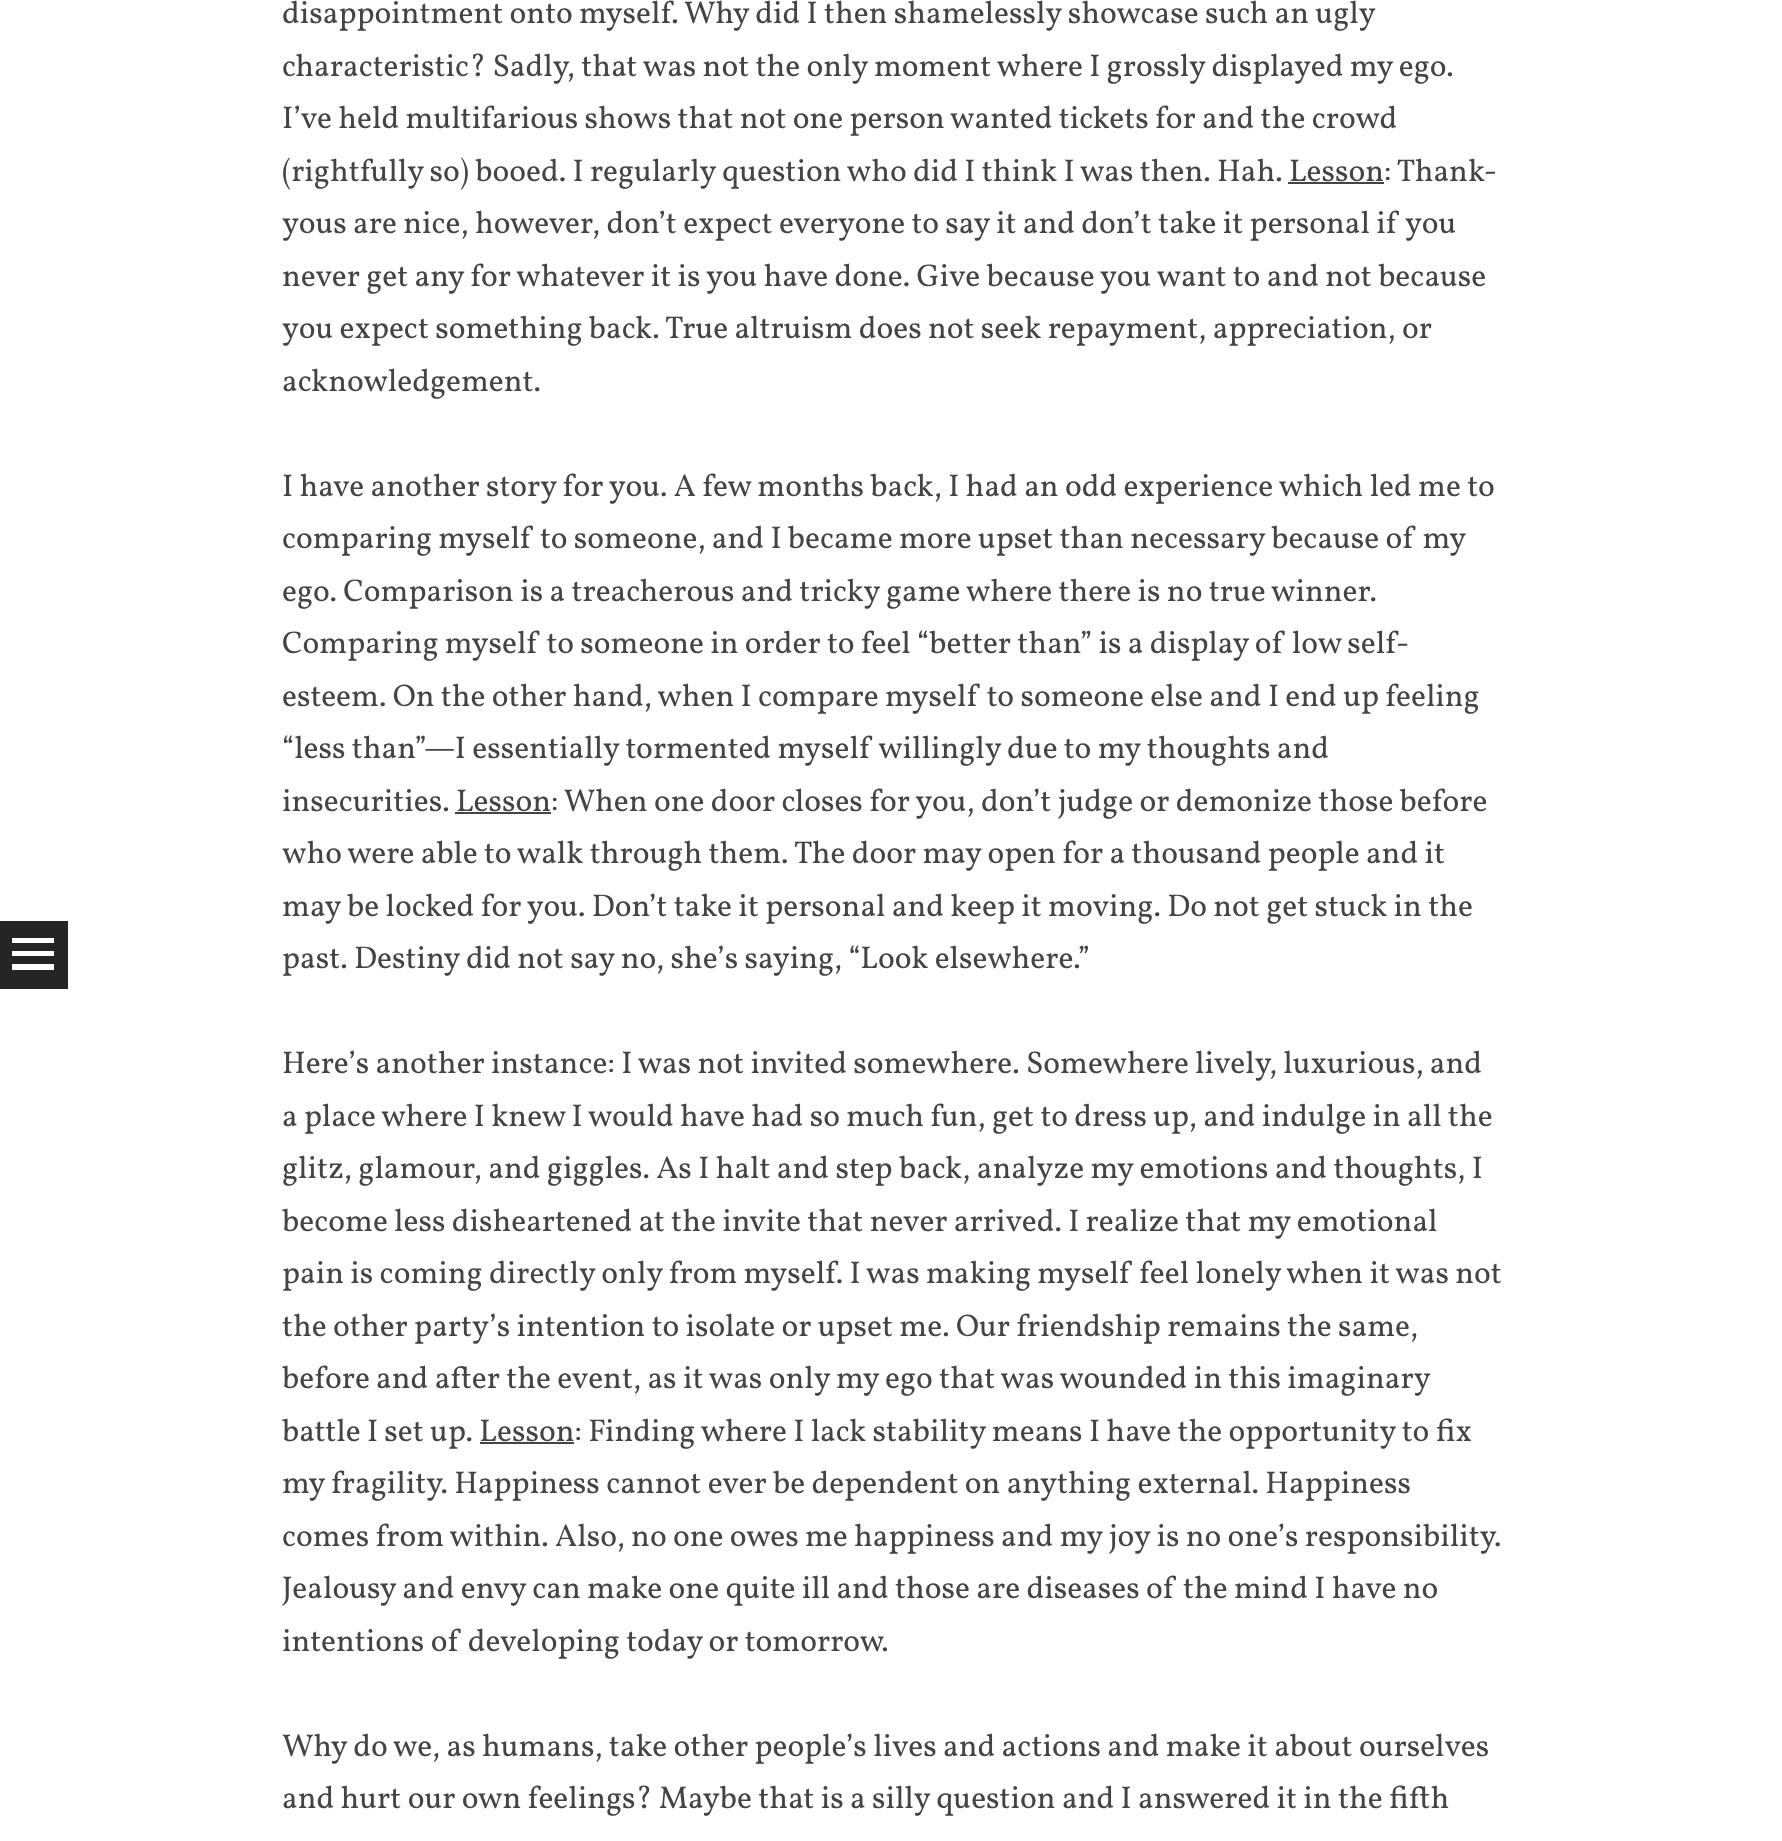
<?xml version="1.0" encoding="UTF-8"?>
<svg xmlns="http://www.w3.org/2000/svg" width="1782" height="1841">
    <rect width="100%" height="100%" fill="#FFFFFF"/>
    <rect x="0" y="921" width="68" height="68" fill="#252525"/>
    <path d="M 54 938 V 943 H 12 V 938 Z M 12 951 H 54 V 956 H 12 Z M 12 964 H 54 V 970 H 12 Z" fill="#FFFFFF"/>
    <text font-family="Vollkorn" font-size="31.5" fill="#444444">
        <tspan x="282" y="23">disappointment onto myself. Why did I then shamelessly showcase such an ugly</tspan>
        <tspan x="282" y="76">characteristic? Sadly, that was not the only moment where I grossly displayed my ego.</tspan>
        <tspan x="282" y="128">I’ve held multifarious shows that not one person wanted tickets for and the crowd</tspan>
        <tspan x="282" y="181">(rightfully so) booed. I regularly question who did I think I was then. Hah. Lesson: Thank-</tspan>
    </text>
    <rect x="1288" y="182" width="96" height="2" fill="#444444"/>
    <text font-family="Vollkorn" font-size="31.5" fill="#444444">
        <tspan x="282" y="233">yous are nice, however, don’t expect everyone to say it and don’t take it personal if you</tspan>
        <tspan x="282" y="286">never get any for whatever it is you have done. Give because you want to and not because</tspan>
        <tspan x="282" y="338">you expect something back. True altruism does not seek repayment, appreciation, or</tspan>
        <tspan x="282" y="391">acknowledgement.</tspan>
    </text>
    <text font-family="Vollkorn" font-size="31.5" fill="#444444">
        <tspan x="282" y="496">I have another story for you. A few months back, I had an odd experience which led me to</tspan>
        <tspan x="282" y="548">comparing myself to someone, and I became more upset than necessary because of my</tspan>
        <tspan x="282" y="601">ego. Comparison is a treacherous and tricky game where there is no true winner.</tspan>
        <tspan x="282" y="653">Comparing myself to someone in order to feel “better than” is a display of low self-</tspan>
        <tspan x="282" y="706">esteem. On the other hand, when I compare myself to someone else and I end up feeling</tspan>
        <tspan x="282" y="758">“less than”—I essentially tormented myself willingly due to my thoughts and</tspan>
        <tspan x="282" y="811">insecurities. Lesson: When one door closes for you, don’t judge or demonize those before</tspan>
    </text>
    <rect x="455" y="812" width="96" height="2" fill="#444444"/>
    <text font-family="Vollkorn" font-size="31.5" fill="#444444">
        <tspan x="282" y="863">who were able to walk through them. The door may open for a thousand people and it</tspan>
        <tspan x="282" y="916">may be locked for you. Don’t take it personal and keep it moving. Do not get stuck in the</tspan>
        <tspan x="282" y="968">past. Destiny did not say no, she’s saying, “Look elsewhere.”</tspan>
    </text>
    <text font-family="Vollkorn" font-size="31.5" fill="#444444">
        <tspan x="282" y="1073">Here’s another instance: I was not invited somewhere. Somewhere lively, luxurious, and</tspan>
        <tspan x="282" y="1126">a place where I knew I would have had so much fun, get to dress up, and indulge in all the</tspan>
        <tspan x="282" y="1178">glitz, glamour, and giggles. As I halt and step back, analyze my emotions and thoughts, I</tspan>
        <tspan x="282" y="1231">become less disheartened at the invite that never arrived. I realize that my emotional</tspan>
        <tspan x="282" y="1283">pain is coming directly only from myself. I was making myself feel lonely when it was not</tspan>
        <tspan x="282" y="1336">the other party’s intention to isolate or upset me. Our friendship remains the same,</tspan>
        <tspan x="282" y="1388">before and after the event, as it was only my ego that was wounded in this imaginary</tspan>
        <tspan x="282" y="1441">battle I set up. Lesson: Finding where I lack stability means I have the opportunity to fix</tspan>
    </text>
    <rect x="480" y="1442" width="94" height="2" fill="#444444"/>
    <text font-family="Vollkorn" font-size="31.5" fill="#444444">
        <tspan x="282" y="1493">my fragility. Happiness cannot ever be dependent on anything external. Happiness</tspan>
        <tspan x="282" y="1546">comes from within. Also, no one owes me happiness and my joy is no one’s responsibility.</tspan>
        <tspan x="282" y="1598">Jealousy and envy can make one quite ill and those are diseases of the mind I have no</tspan>
        <tspan x="282" y="1651">intentions of developing today or tomorrow.</tspan>
    </text>
    <text font-family="Vollkorn" font-size="31.5" fill="#444444">
        <tspan x="282" y="1756">Why do we, as humans, take other people’s lives and actions and make it about ourselves</tspan>
        <tspan x="282" y="1808">and hurt our own feelings? Maybe that is a silly question and I answered it in the fifth</tspan>
    </text>
</svg>
